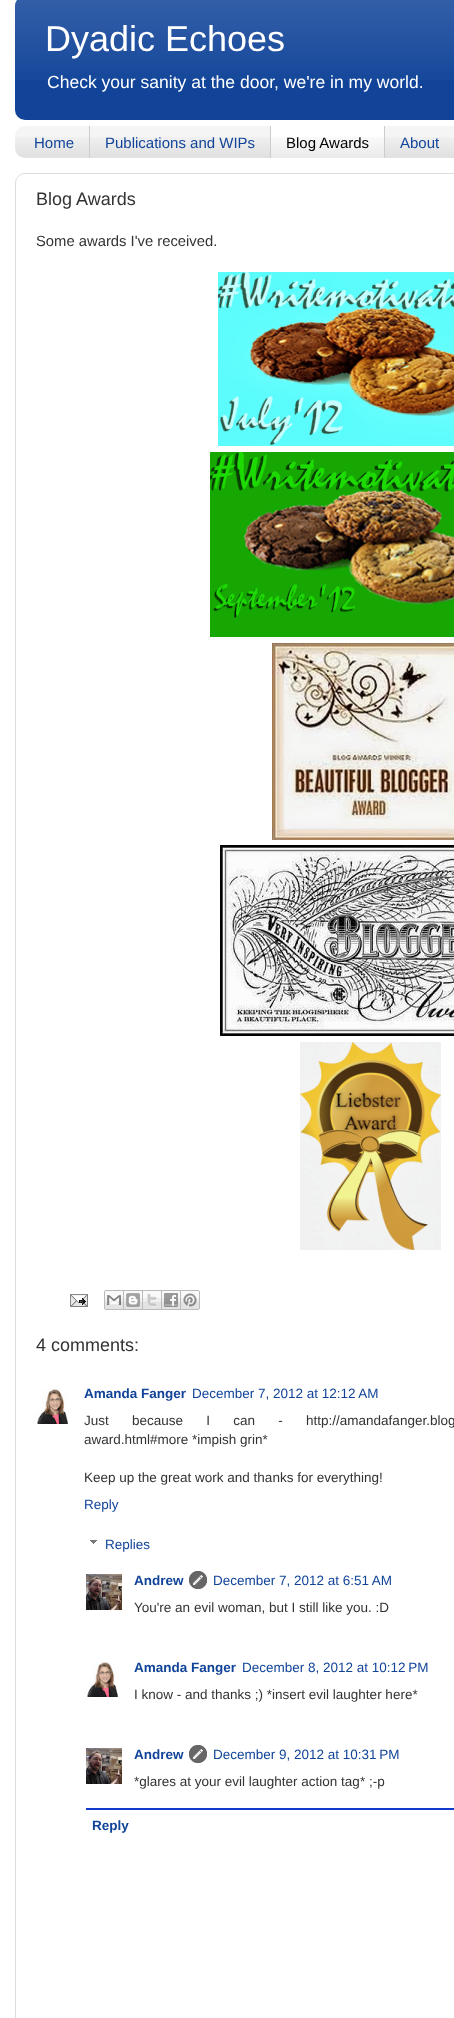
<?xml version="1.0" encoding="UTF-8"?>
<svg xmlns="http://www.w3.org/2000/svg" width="454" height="2018">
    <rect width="100%" height="100%" fill="#FFFFFF"/>
    <rect x="15" y="-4" width="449" height="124" rx="10" fill="#114499"/>
    <image x="15" y="0" width="439" height="80" href="img_01.png"/>
    <text x="45" y="51" font-family="Liberation Sans" font-size="36" fill="#FFFFFF">Dyadic Echoes</text>
    <text x="47" y="88" font-family="Liberation Sans" font-size="17.55" fill="#FFFFFF">Check your sanity at the door, we're in my world.</text>
    <rect x="15" y="126" width="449" height="32" rx="10" fill="#F5F5F5"/>
    <image x="15" y="137" width="439" height="21" href="img_02.png"/>
    <rect x="89" y="126" width="1" height="32" fill="#CCCCCC"/>
    <text x="34" y="148" font-family="Liberation Sans" font-size="15" fill="#114499">Home</text>
    <rect x="270" y="126" width="1" height="32" fill="#CCCCCC"/>
    <text x="105" y="148" font-family="Liberation Sans" font-size="15" fill="#114499">Publications and WIPs</text>
    <rect x="271" y="126" width="113" height="32" fill="#FFFFFF"/>
    <image x="271" y="137" width="113" height="21" href="img_03.png"/>
    <rect x="384" y="126" width="1" height="32" fill="#CCCCCC"/>
    <text x="286" y="148" font-family="Liberation Sans" font-size="15" fill="#000000">Blog Awards</text>
    <text x="400" y="148" font-family="Liberation Sans" font-size="15" fill="#114499">About</text>
    <rect x="15.5" y="173.5" width="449" height="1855" rx="9.5" fill="none" stroke="#DDDDDD"/>
    <text x="36" y="205" font-family="Liberation Sans" font-size="18" fill="#333333">Blog Awards</text>
    <text x="36" y="246" font-family="Liberation Sans" font-size="14.8" fill="#333333">Some awards I've received.</text>
    <image x="218" y="272" width="236" height="174" href="img_04.png"/>
    <image x="210" y="452" width="244" height="185" href="img_05.png"/>
    <image x="272" y="643" width="182" height="197" href="img_06.png"/>
    <image x="220" y="845" width="234" height="191" href="img_07.png"/>
    <image x="300" y="1042" width="141" height="208" href="img_08.png"/>
    <image x="70" y="1294" width="18" height="13" href="img_09.png"/>
    <image x="104" y="1290" width="20" height="20" href="img_10.png"/>
    <image x="124" y="1290" width="19" height="20" href="img_11.png"/>
    <image x="143" y="1290" width="19" height="20" href="img_12.png"/>
    <image x="162" y="1290" width="19" height="20" href="img_13.png"/>
    <image x="181" y="1290" width="19" height="20" href="img_14.png"/>
    <text x="36" y="1351" font-family="Liberation Sans" font-size="18" fill="#333333">4 comments:</text>
    <image x="36" y="1388" width="32" height="36" href="img_15.png"/>
    <text x="84" y="1398" font-family="Liberation Sans" font-size="13.5" font-weight="700" fill="#114499">Amanda Fanger</text>
    <text x="192" y="1398" font-family="Liberation Sans" font-size="13.5" fill="#114499">December 7, 2012 at 12:12 AM</text>
    <text font-family="Liberation Sans" font-size="13.5" fill="#333333">
        <tspan x="84" y="1425" word-spacing="19.5">Just because I can - http://amandafanger.blog</tspan>
        <tspan x="84" y="1444">award.html#more *impish grin*</tspan>
    </text>
    <text x="84" y="1482" font-family="Liberation Sans" font-size="13.5" fill="#333333">Keep up the great work and thanks for everything!</text>
    <text x="84" y="1509" font-family="Liberation Sans" font-size="13.5" fill="#114499">Reply</text>
    <image x="90" y="1540" width="7" height="4" href="img_16.png"/>
    <text x="105" y="1549" font-family="Liberation Sans" font-size="13.5" fill="#114499">Replies</text>
    <image x="86" y="1574" width="36" height="36" href="img_17.png"/>
    <text x="134" y="1585" font-family="Liberation Sans" font-size="13.5" font-weight="700" fill="#114499">Andrew</text>
    <image x="189" y="1571" width="18" height="18" href="img_18.png"/>
    <text x="213" y="1585" font-family="Liberation Sans" font-size="13.5" fill="#114499">December 7, 2012 at 6:51 AM</text>
    <text x="134" y="1612" font-family="Liberation Sans" font-size="13.5" fill="#333333">You're an evil woman, but I still like you. :D</text>
    <image x="86" y="1661" width="32" height="36" href="img_15.png"/>
    <text x="134" y="1672" font-family="Liberation Sans" font-size="13.5" font-weight="700" fill="#114499">Amanda Fanger</text>
    <text x="242" y="1672" font-family="Liberation Sans" font-size="13.5" fill="#114499">December 8, 2012 at 10:12 PM</text>
    <text x="134" y="1699" font-family="Liberation Sans" font-size="13.5" fill="#333333">I know - and thanks ;) *insert evil laughter here*</text>
    <image x="86" y="1748" width="36" height="36" href="img_17.png"/>
    <text x="134" y="1759" font-family="Liberation Sans" font-size="13.5" font-weight="700" fill="#114499">Andrew</text>
    <image x="189" y="1745" width="18" height="18" href="img_18.png"/>
    <text x="213" y="1759" font-family="Liberation Sans" font-size="13.5" fill="#114499">December 9, 2012 at 10:31 PM</text>
    <text x="134" y="1786" font-family="Liberation Sans" font-size="13.5" fill="#333333">*glares at your evil laughter action tag* ;-p</text>
    <rect x="86" y="1808" width="368" height="2" fill="#113BCC"/>
    <text x="92" y="1830" font-family="Liberation Sans" font-size="13.5" font-weight="700" fill="#114499">Reply</text>
</svg>
